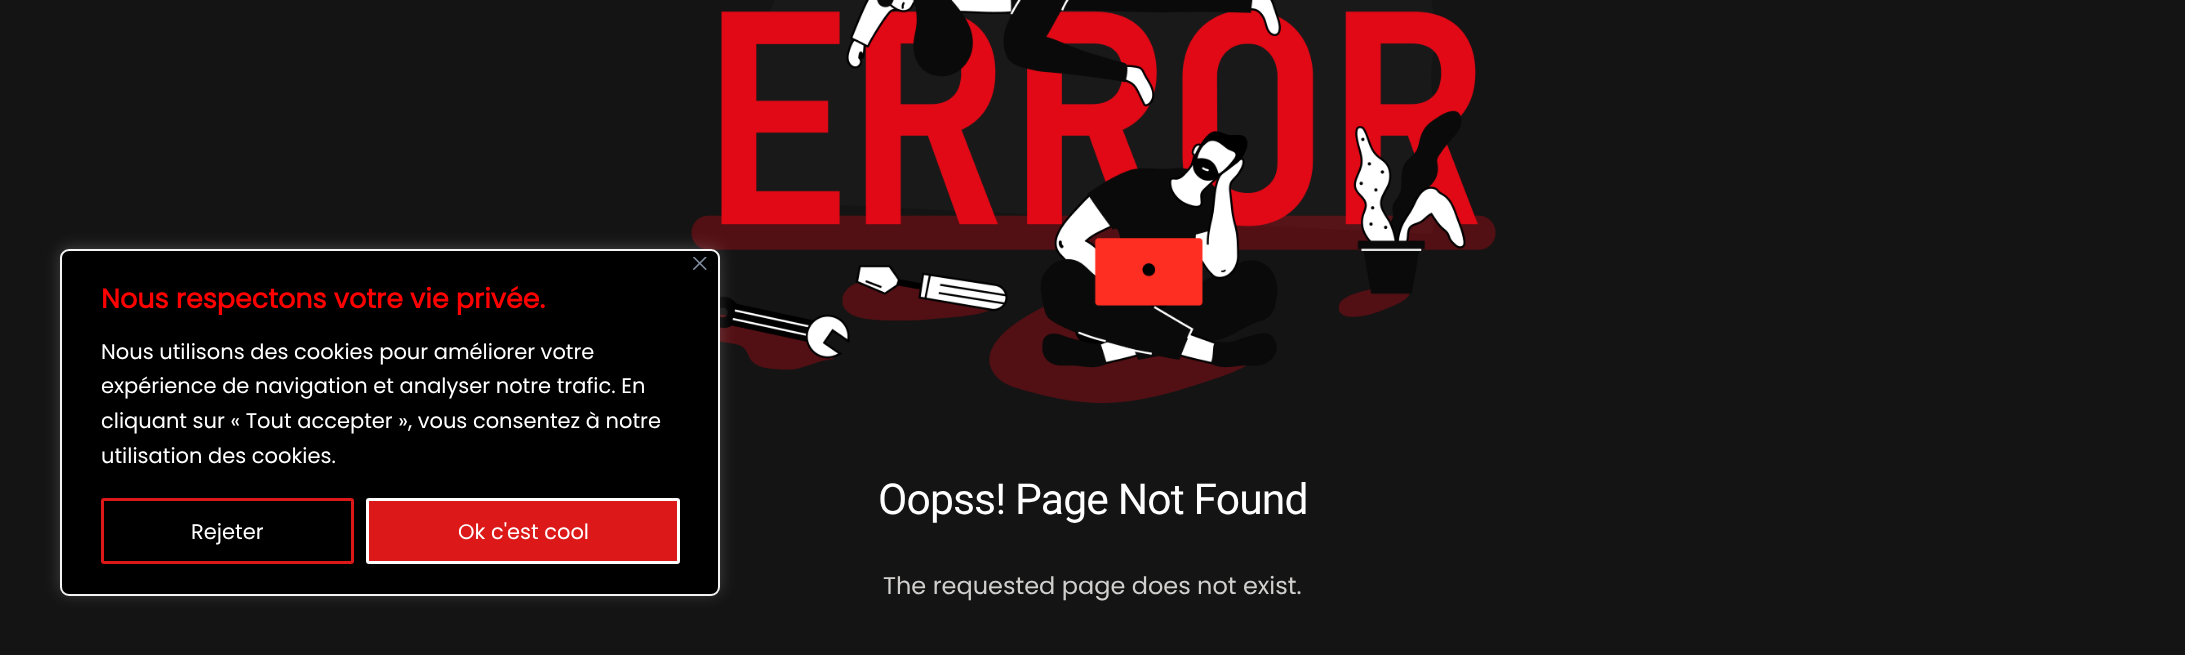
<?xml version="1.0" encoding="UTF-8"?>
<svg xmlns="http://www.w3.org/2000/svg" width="2185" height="655">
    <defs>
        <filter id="blur1" x="-50%" y="-200%" width="200%" height="500%"><feGaussianBlur stdDeviation="7.5"/></filter>
    </defs>
    <rect width="100%" height="100%" fill="#141414"/>
    <image x="691" y="0" width="805" height="403" href="img_02.png"/>
    <rect x="60" y="248" width="660" height="346" rx="9" fill="#ACABAB" fill-opacity="0.3" filter="url(#blur1)"/>
    <rect x="61" y="250" width="658" height="345" rx="8" fill="#000000" stroke="#F4F4F4" stroke-width="2"/>
    <image x="693" y="257" width="14" height="13" href="img_01.png"/>
    <text x="101" y="308" font-family="Poppins" font-size="27" font-weight="700" fill="#FF0000">Nous respectons votre vie privée.</text>
    <text font-family="Poppins" font-size="21" fill="#FFFFFF">
        <tspan x="101" y="359">Nous utilisons des cookies pour améliorer votre</tspan>
        <tspan x="101" y="393">expérience de navigation et analyser notre trafic. En</tspan>
        <tspan x="101" y="428">cliquant sur « Tout accepter », vous consentez à notre</tspan>
        <tspan x="101" y="463">utilisation des cookies.</tspan>
    </text>
    <rect x="102.5" y="499.5" width="250" height="63" rx="1.5" fill="none" stroke="#DC1818" stroke-width="3"/>
    <text x="191" y="539" font-family="Poppins" font-size="21" fill="#FFFFFF">Rejeter</text>
    <rect x="367.5" y="499.5" width="311" height="63" rx="1.5" fill="#DC1818" stroke="#FFFFFF" stroke-width="3"/>
    <text x="458" y="539" font-family="Poppins" font-size="21" fill="#FFFFFF">Ok c'est cool</text>
    <text x="878" y="514" font-family="Roboto" font-size="42.6" letter-spacing="-0.85" fill="#FFFFFF">Oopss! Page Not Found</text>
    <text x="883" y="594" font-family="Poppins" font-size="24" fill="#D1D0CF">The requested page does not exist.</text>
</svg>
